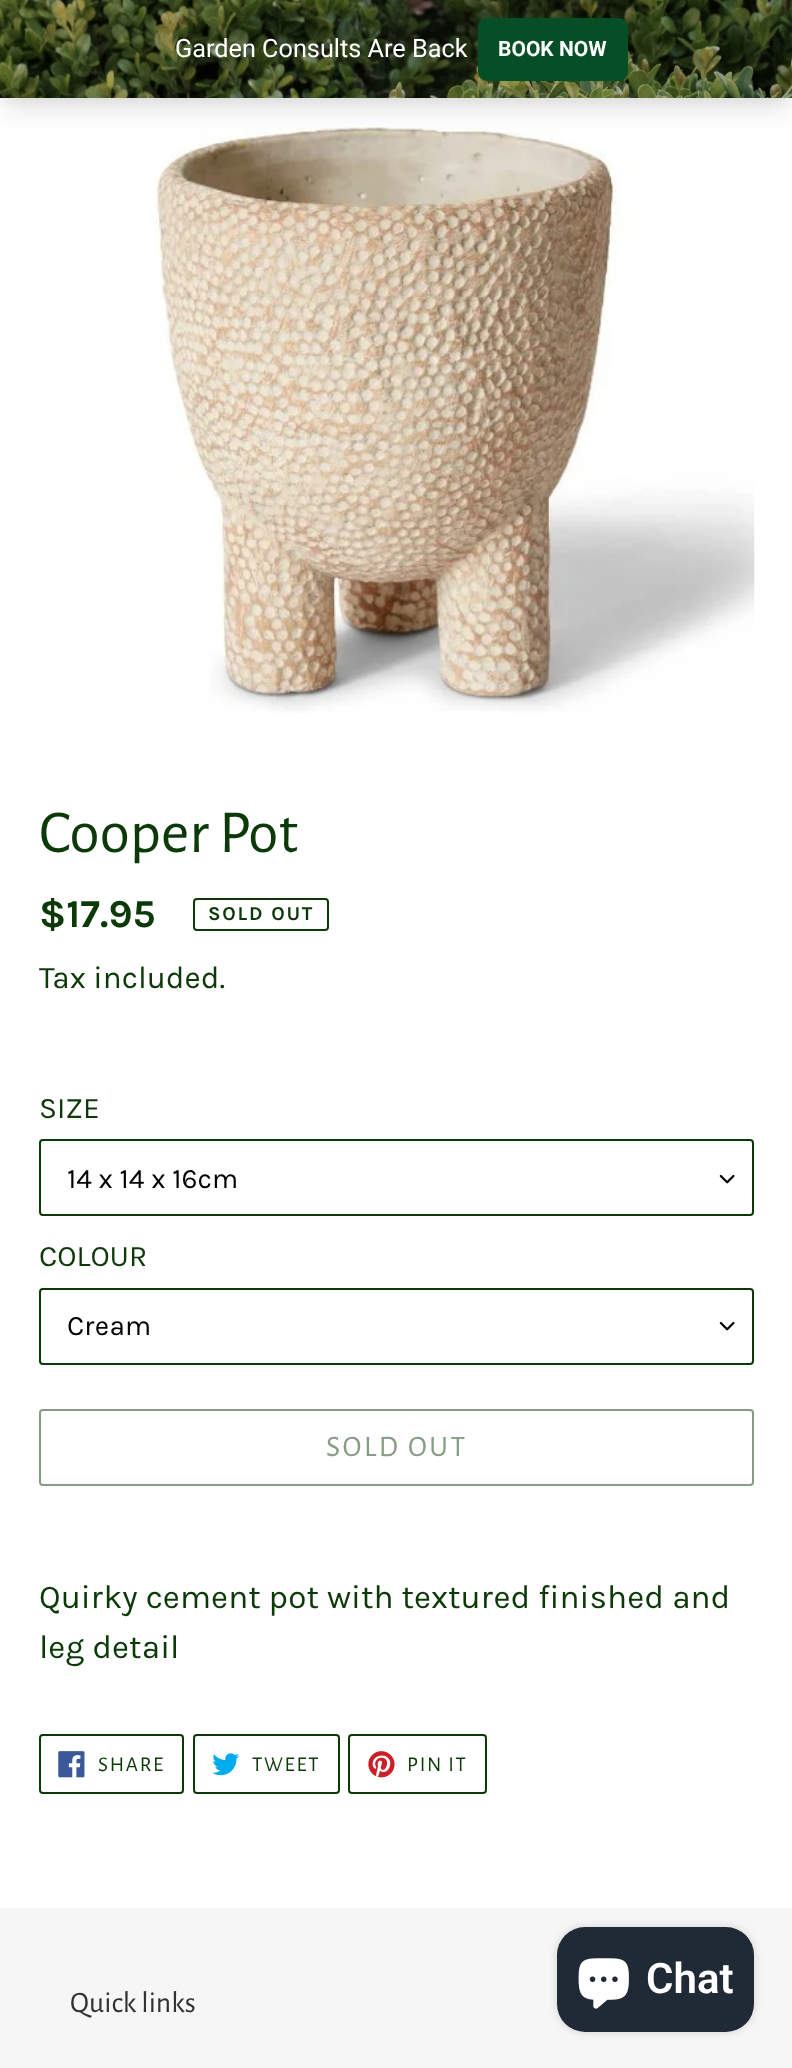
<?xml version="1.0" encoding="UTF-8"?>
<svg xmlns="http://www.w3.org/2000/svg" width="792" height="2068">
    <defs>
        <filter id="blur1" x="-50%" y="-200%" width="200%" height="500%"><feGaussianBlur stdDeviation="5"/></filter>
        <filter id="blur2" x="-50%" y="-200%" width="200%" height="500%"><feGaussianBlur stdDeviation="13"/></filter>
        <filter id="blur3" x="-50%" y="-200%" width="200%" height="500%"><feGaussianBlur stdDeviation="4.5"/></filter>
    </defs>
    <rect width="100%" height="100%" fill="#FFFFFF"/>
    <rect x="4" y="11" width="785" height="91" fill="#000000" fill-opacity="0.05" filter="url(#blur1)"/>
    <image x="155" y="127" width="600" height="586" href="img_02.png"/>
    <rect x="5" y="23" width="783" height="87" fill="#000000" fill-opacity="0.1" filter="url(#blur2)"/>
    <image x="0" y="0" width="792" height="98" href="img_01.png"/>
    <text x="175" y="57" font-family="Roboto" font-size="25.25" fill="#FFFFFF">Garden Consults Are Back</text>
    <rect x="478" y="18" width="150" height="63" rx="9" fill="#064F26"/>
    <text x="498" y="56" font-family="Roboto" font-size="21" font-weight="700" fill="#FFFFFF">BOOK NOW</text>
    <text x="39" y="852" font-family="Alegreya Sans" font-size="61.25" fill="#0C3908">Cooper Pot</text>
    <text x="39" y="927" font-family="Karla" font-size="39.5" font-weight="700" fill="#0C3908">$17.95</text>
    <rect x="194" y="899" width="134" height="31" rx="3" fill="none" stroke="#0C3908" stroke-width="2"/>
    <text x="208" y="920" font-family="Karla" font-size="19.75" font-weight="700" letter-spacing="1.75" fill="#0C3908">SOLD OUT</text>
    <text x="39" y="988" font-family="Karla" font-size="31.5" fill="#0C3908">Tax included.</text>
    <text x="39" y="1118" font-family="Karla" font-size="29.75" fill="#0C3908">SIZE</text>
    <image x="719" y="1174" width="16" height="10" href="img_03.png"/>
    <rect x="40" y="1140" width="713" height="75" rx="3" fill="none" stroke="#0C3908" stroke-width="2"/>
    <text x="67" y="1188" font-family="Karla" font-size="28" fill="#000000">14 x 14 x 16cm</text>
    <text x="39" y="1266" font-family="Karla" font-size="29.75" fill="#0C3908">COLOUR</text>
    <image x="719" y="1321" width="16" height="10" href="img_03.png"/>
    <rect x="40" y="1289" width="713" height="75" rx="3" fill="none" stroke="#0C3908" stroke-width="2"/>
    <text x="67" y="1335" font-family="Karla" font-size="28" fill="#000000">Cream</text>
    <rect x="40" y="1410" width="713" height="75" rx="3" fill="none" stroke="#869C84" stroke-width="2"/>
    <text x="326" y="1456" font-family="Alegreya Sans" font-size="29.75" letter-spacing="2.5" fill="#869C84">SOLD OUT</text>
    <text font-family="Karla" font-size="33.25" fill="#0C3908">
        <tspan x="39" y="1608">Quirky cement pot with textured finished and</tspan>
        <tspan x="39" y="1658">leg detail</tspan>
    </text>
    <rect x="40" y="1735" width="143" height="58" rx="3" fill="none" stroke="#0C3908" stroke-width="2"/>
    <image x="58" y="1751" width="27" height="27" href="img_04.png"/>
    <text x="98" y="1771" font-family="Alegreya Sans" font-size="21" letter-spacing="1.75" fill="#0C3908">SHARE</text>
    <rect x="194" y="1735" width="145" height="58" rx="3" fill="none" stroke="#0C3908" stroke-width="2"/>
    <image x="212" y="1753" width="27" height="23" href="img_05.png"/>
    <text x="252" y="1771" font-family="Alegreya Sans" font-size="21" letter-spacing="1.75" fill="#0C3908">TWEET</text>
    <rect x="349" y="1735" width="137" height="58" rx="3" fill="none" stroke="#0C3908" stroke-width="2"/>
    <image x="368" y="1751" width="27" height="27" href="img_06.png"/>
    <text x="407" y="1771" font-family="Alegreya Sans" font-size="21" letter-spacing="1.75" fill="#0C3908">PIN IT</text>
    <rect x="0" y="1908" width="792" height="160" fill="#F6F6F6"/>
    <text x="70" y="2012" font-family="Alegreya Sans" font-size="29.75" fill="#333232">Quick links</text>
    <rect x="557" y="1927" width="197" height="105" rx="28" fill="#000000" fill-opacity="0.15" filter="url(#blur3)"/>
    <rect x="557" y="1927" width="197" height="105" rx="28" fill="#202A36"/>
    <image x="578" y="1958" width="51" height="51" href="img_07.png"/>
    <text x="646" y="1993" font-family="Roboto" font-size="42" font-weight="600" fill="#FFFFFF">Chat</text>
</svg>
